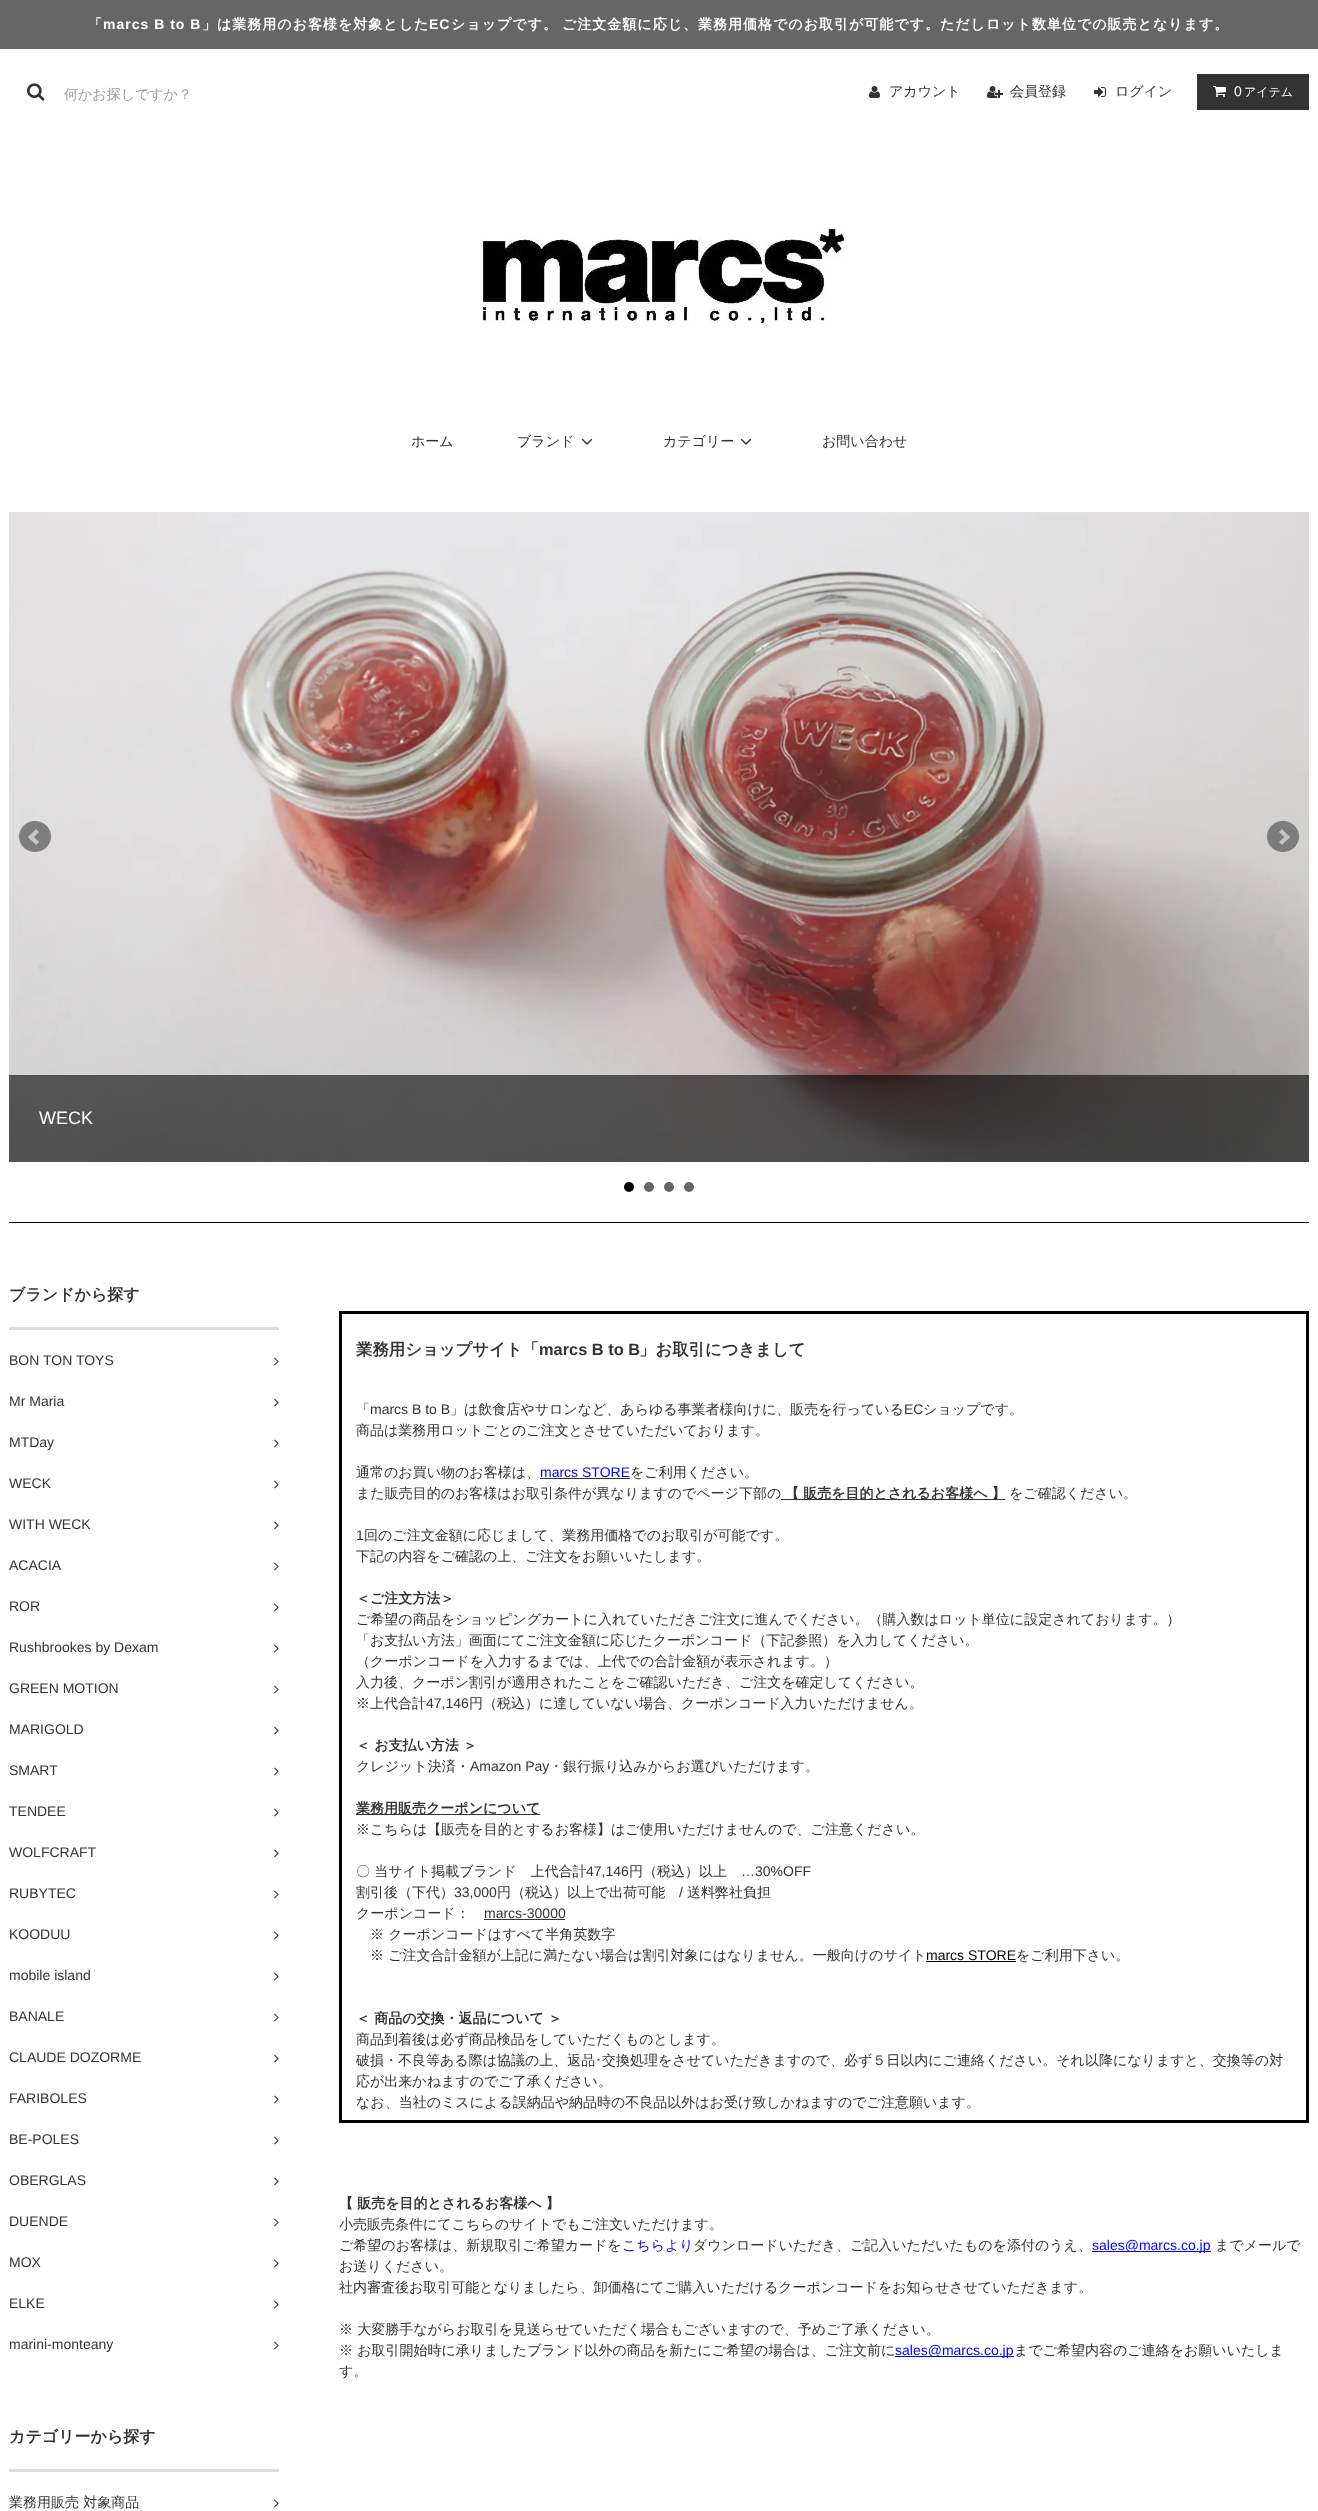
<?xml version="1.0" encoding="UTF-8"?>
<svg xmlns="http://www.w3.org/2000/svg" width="1318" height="2511">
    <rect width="100%" height="100%" fill="#FFFFFF"/>
    <rect x="0" y="0" width="1318" height="49" fill="#666666"/>
    <text x="88" y="29" font-family="WenQuanYi Zen Hei" font-size="14" font-weight="700" letter-spacing="1" fill="#FFFFFF">「</text>
    <text x="103" y="29" font-family="Liberation Sans" font-size="14" font-weight="700" letter-spacing="1" fill="#FFFFFF">marcs B to B</text>
    <text x="202" y="29" font-family="WenQuanYi Zen Hei" font-size="14" font-weight="700" letter-spacing="1" fill="#FFFFFF">」は業務用のお客様を対象とした</text>
    <text x="429" y="29" font-family="Liberation Sans" font-size="14" font-weight="700" letter-spacing="1" fill="#FFFFFF">EC</text>
    <text x="451" y="29" font-family="WenQuanYi Zen Hei" font-size="14" font-weight="700" letter-spacing="1" fill="#FFFFFF">ショップです。</text>
    <text x="562" y="29" font-family="WenQuanYi Zen Hei" font-size="14" font-weight="700" letter-spacing="1" fill="#FFFFFF">ご注文金額に応じ、業務用価格でのお取引が可能です。ただしロット数単位での販売となります。</text>
    <image x="27" y="83" width="18" height="18" href="img_01.png"/>
    <text x="64" y="99" font-family="WenQuanYi Zen Hei" font-size="14" font-weight="500" fill="#999999">何かお探しですか？</text>
    <image x="869" y="86" width="11" height="12" href="img_02.png"/>
    <text x="889" y="96" font-family="WenQuanYi Zen Hei" font-size="14" font-weight="500" fill="#333333">アカウント</text>
    <image x="987" y="86" width="16" height="12" href="img_03.png"/>
    <text x="1010" y="96" font-family="WenQuanYi Zen Hei" font-size="14" font-weight="500" fill="#333333">会員登録</text>
    <image x="1094" y="87" width="12" height="10" href="img_04.png"/>
    <text x="1115" y="96" font-family="WenQuanYi Zen Hei" font-size="14" font-weight="500" fill="#333333">ログイン</text>
    <rect x="1197" y="74" width="112" height="36" fill="#333333"/>
    <image x="1213" y="86" width="13" height="11" href="img_05.png"/>
    <text x="1234" y="96" font-family="Liberation Sans" font-size="14" fill="#FFFFFF">0</text>
    <text x="1244" y="96" font-family="WenQuanYi Zen Hei" font-size="12" font-weight="500" fill="#FFFFFF">アイテム</text>
    <image x="481" y="227" width="364" height="96" href="img_06.png"/>
    <text x="411" y="446" font-family="WenQuanYi Zen Hei" font-size="14" font-weight="500" fill="#333333">ホーム</text>
    <text x="517" y="446" font-family="WenQuanYi Zen Hei" font-size="14" font-weight="500" fill="#333333">ブランド</text>
    <image x="581" y="438" width="12" height="7" href="img_07.png"/>
    <text x="663" y="446" font-family="WenQuanYi Zen Hei" font-size="14" font-weight="500" fill="#333333">カテゴリー</text>
    <image x="740" y="438" width="12" height="7" href="img_07.png"/>
    <text x="822" y="446" font-family="WenQuanYi Zen Hei" font-size="14" font-weight="500" fill="#333333">お問い合わせ</text>
    <image x="9" y="512" width="1300" height="650" href="img_10.png"/>
    <image x="19" y="821" width="32" height="31" href="img_08.png"/>
    <image x="1267" y="821" width="32" height="31" href="img_09.png"/>
    <circle cx="629" cy="1187" r="5" fill="#000000"/>
    <circle cx="649" cy="1187" r="5" fill="#666666"/>
    <circle cx="669" cy="1187" r="5" fill="#666666"/>
    <circle cx="689" cy="1187" r="5" fill="#666666"/>
    <rect x="9" y="1075" width="1300" height="87" fill="#000000" fill-opacity="0.6"/>
    <text x="39" y="1124" font-family="Liberation Sans" font-size="18" fill="#FFFFFF">WECK</text>
    <rect x="9" y="1222" width="1300" height="1" fill="#000000"/>
    <rect x="9" y="1327" width="270" height="3" fill="#DDDDDD"/>
    <text x="9" y="1300" font-family="WenQuanYi Zen Hei" font-size="16" font-weight="700" fill="#333333">ブランドから探す</text>
    <text x="9" y="1365" font-family="Liberation Sans" font-size="14" fill="#333333">BON TON TOYS</text>
    <image x="274" y="1357" width="5" height="9" href="img_11.png"/>
    <text x="9" y="1406" font-family="Liberation Sans" font-size="14" fill="#333333">Mr Maria</text>
    <image x="274" y="1398" width="5" height="9" href="img_11.png"/>
    <text x="9" y="1447" font-family="Liberation Sans" font-size="14" fill="#333333">MTDay</text>
    <image x="274" y="1439" width="5" height="9" href="img_11.png"/>
    <text x="9" y="1488" font-family="Liberation Sans" font-size="14" fill="#333333">WECK</text>
    <image x="274" y="1480" width="5" height="9" href="img_11.png"/>
    <text x="9" y="1529" font-family="Liberation Sans" font-size="14" fill="#333333">WITH WECK</text>
    <image x="274" y="1521" width="5" height="9" href="img_11.png"/>
    <text x="9" y="1570" font-family="Liberation Sans" font-size="14" fill="#333333">ACACIA</text>
    <image x="274" y="1562" width="5" height="9" href="img_11.png"/>
    <text x="9" y="1611" font-family="Liberation Sans" font-size="14" fill="#333333">ROR</text>
    <image x="274" y="1603" width="5" height="9" href="img_11.png"/>
    <text x="9" y="1652" font-family="Liberation Sans" font-size="14" fill="#333333">Rushbrookes by Dexam</text>
    <image x="274" y="1644" width="5" height="9" href="img_11.png"/>
    <text x="9" y="1693" font-family="Liberation Sans" font-size="14" fill="#333333">GREEN MOTION</text>
    <image x="274" y="1685" width="5" height="9" href="img_11.png"/>
    <text x="9" y="1734" font-family="Liberation Sans" font-size="14" fill="#333333">MARIGOLD</text>
    <image x="274" y="1726" width="5" height="9" href="img_11.png"/>
    <text x="9" y="1775" font-family="Liberation Sans" font-size="14" fill="#333333">SMART</text>
    <image x="274" y="1767" width="5" height="9" href="img_11.png"/>
    <text x="9" y="1816" font-family="Liberation Sans" font-size="14" fill="#333333">TENDEE</text>
    <image x="274" y="1808" width="5" height="9" href="img_11.png"/>
    <text x="9" y="1857" font-family="Liberation Sans" font-size="14" fill="#333333">WOLFCRAFT</text>
    <image x="274" y="1849" width="5" height="9" href="img_11.png"/>
    <text x="9" y="1898" font-family="Liberation Sans" font-size="14" fill="#333333">RUBYTEC</text>
    <image x="274" y="1890" width="5" height="9" href="img_11.png"/>
    <text x="9" y="1939" font-family="Liberation Sans" font-size="14" fill="#333333">KOODUU</text>
    <image x="274" y="1931" width="5" height="9" href="img_11.png"/>
    <text x="9" y="1980" font-family="Liberation Sans" font-size="14" fill="#333333">mobile island</text>
    <image x="274" y="1972" width="5" height="9" href="img_11.png"/>
    <text x="9" y="2021" font-family="Liberation Sans" font-size="14" fill="#333333">BANALE</text>
    <image x="274" y="2013" width="5" height="9" href="img_11.png"/>
    <text x="9" y="2062" font-family="Liberation Sans" font-size="14" fill="#333333">CLAUDE DOZORME</text>
    <image x="274" y="2054" width="5" height="9" href="img_11.png"/>
    <text x="9" y="2103" font-family="Liberation Sans" font-size="14" fill="#333333">FARIBOLES</text>
    <image x="274" y="2095" width="5" height="9" href="img_11.png"/>
    <text x="9" y="2144" font-family="Liberation Sans" font-size="14" fill="#333333">BE-POLES</text>
    <image x="274" y="2136" width="5" height="9" href="img_11.png"/>
    <text x="9" y="2185" font-family="Liberation Sans" font-size="14" fill="#333333">OBERGLAS</text>
    <image x="274" y="2177" width="5" height="9" href="img_11.png"/>
    <text x="9" y="2226" font-family="Liberation Sans" font-size="14" fill="#333333">DUENDE</text>
    <image x="274" y="2218" width="5" height="9" href="img_11.png"/>
    <text x="9" y="2267" font-family="Liberation Sans" font-size="14" fill="#333333">MOX</text>
    <image x="274" y="2259" width="5" height="9" href="img_11.png"/>
    <text x="9" y="2308" font-family="Liberation Sans" font-size="14" fill="#333333">ELKE</text>
    <image x="274" y="2300" width="5" height="9" href="img_11.png"/>
    <text x="9" y="2349" font-family="Liberation Sans" font-size="14" fill="#333333">marini-monteany</text>
    <image x="274" y="2341" width="5" height="9" href="img_11.png"/>
    <rect x="9" y="2469" width="270" height="3" fill="#DDDDDD"/>
    <text x="9" y="2442" font-family="WenQuanYi Zen Hei" font-size="16" font-weight="700" fill="#333333">カテゴリーから探す</text>
    <text x="9" y="2507" font-family="WenQuanYi Zen Hei" font-size="14" font-weight="500" fill="#333333">業務用販売 対象商品</text>
    <image x="274" y="2499" width="5" height="9" href="img_11.png"/>
    <rect x="340.5" y="1312.5" width="967" height="809" fill="none" stroke="#000000" stroke-width="3"/>
    <text x="356" y="1355" font-family="WenQuanYi Zen Hei" font-size="16.4" font-weight="700" fill="#333333">業務用ショップサイト「</text>
    <text x="539" y="1355" font-family="Liberation Sans" font-size="16.4" font-weight="700" fill="#333333">marcs B to B</text>
    <text x="639" y="1355" font-family="WenQuanYi Zen Hei" font-size="16.4" font-weight="700" fill="#333333">」お取引につきまして</text>
    <text x="356" y="1414" font-family="WenQuanYi Zen Hei" font-size="14" font-weight="500" fill="#333333">「</text>
    <text x="370" y="1414" font-family="Liberation Sans" font-size="14" fill="#333333">marcs B to B</text>
    <text x="450" y="1414" font-family="WenQuanYi Zen Hei" font-size="14" font-weight="500" fill="#333333">」は飲食店やサロンなど、あらゆる事業者様向けに、販売を行っている</text>
    <text x="904" y="1414" font-family="Liberation Sans" font-size="14" fill="#333333">EC</text>
    <text x="923" y="1414" font-family="WenQuanYi Zen Hei" font-size="14" font-weight="500" fill="#333333">ショップです。</text>
    <text x="356" y="1435" font-family="WenQuanYi Zen Hei" font-size="14" font-weight="500" fill="#333333">商品は業務用ロットごとのご注文とさせていただいております。</text>
    <text x="356" y="1477" font-family="WenQuanYi Zen Hei" font-size="14" font-weight="500" fill="#333333">通常のお買い物のお客様は、</text>
    <text x="540" y="1477" font-family="Liberation Sans" font-size="14" fill="#0000FF">marcs STORE</text>
    <rect x="540" y="1478" width="90" height="1" fill="#333333"/>
    <text x="630" y="1477" font-family="WenQuanYi Zen Hei" font-size="14" font-weight="500" fill="#333333">をご利用ください。</text>
    <text x="356" y="1498" font-family="WenQuanYi Zen Hei" font-size="14" font-weight="500" fill="#333333">また販売目的のお客様はお取引条件が異なりますのでページ下部の</text>
    <rect x="781" y="1499" width="224" height="1" fill="#333333"/>
    <text x="785" y="1498" font-family="WenQuanYi Zen Hei" font-size="14" font-weight="700" fill="#333333">【 販売を目的とされるお客様へ 】</text>
    <text x="1009" y="1498" font-family="WenQuanYi Zen Hei" font-size="14" font-weight="500" fill="#333333">をご確認ください。</text>
    <text x="356" y="1540" font-family="Liberation Sans" font-size="14" fill="#333333">1</text>
    <text x="364" y="1540" font-family="WenQuanYi Zen Hei" font-size="14" font-weight="500" fill="#333333">回のご注文金額に応じまして、業務用価格でのお取引が可能です。</text>
    <text x="356" y="1561" font-family="WenQuanYi Zen Hei" font-size="14" font-weight="500" fill="#333333">下記の内容をご確認の上、ご注文をお願いいたします。</text>
    <text x="356" y="1603" font-family="WenQuanYi Zen Hei" font-size="14" font-weight="700" fill="#333333">＜ご注文方法＞</text>
    <text font-family="WenQuanYi Zen Hei" font-size="14" font-weight="500" fill="#333333">
        <tspan x="356" y="1624">ご希望の商品をショッピングカートに入れていただきご注文に進んでください。（購入数はロット単位に設定されております。）</tspan>
        <tspan x="356" y="1645">「お支払い方法」画面にてご注文金額に応じたクーポンコード（下記参照）を入力してください。</tspan>
        <tspan x="356" y="1666">（クーポンコードを入力するまでは、上代での合計金額が表示されます。）</tspan>
        <tspan x="356" y="1687">入力後、クーポン割引が適用されたことをご確認いただき、ご注文を確定してください。</tspan>
        <tspan x="356" y="1708">※上代合計</tspan>
    </text>
    <text x="426" y="1708" font-family="Liberation Sans" font-size="14" fill="#333333">47,146</text>
    <text x="469" y="1708" font-family="WenQuanYi Zen Hei" font-size="14" font-weight="500" fill="#333333">円（税込）に達していない場合、クーポンコード入力いただけません。</text>
    <text x="356" y="1750" font-family="WenQuanYi Zen Hei" font-size="14" font-weight="700" fill="#333333">＜ お支払い方法 ＞</text>
    <text x="356" y="1771" font-family="WenQuanYi Zen Hei" font-size="14" font-weight="500" fill="#333333">クレジット決済・</text>
    <text x="470" y="1771" font-family="Liberation Sans" font-size="14" fill="#333333">Amazon Pay</text>
    <text x="549" y="1771" font-family="WenQuanYi Zen Hei" font-size="14" font-weight="500" fill="#333333">・銀行振り込みからお選びいただけます。</text>
    <rect x="356" y="1814" width="184" height="1" fill="#333333"/>
    <text x="356" y="1813" font-family="WenQuanYi Zen Hei" font-size="14" font-weight="700" fill="#333333">業務用販売クーポンについて</text>
    <text x="356" y="1834" font-family="WenQuanYi Zen Hei" font-size="14" font-weight="500" fill="#333333">※こちらは【販売を目的とするお客様】はご使用いただけませんので、ご注意ください。</text>
    <text x="356" y="1876" font-family="WenQuanYi Zen Hei" font-size="14" font-weight="500" fill="#333333">〇 当サイト掲載ブランド　上代合計</text>
    <text x="586" y="1876" font-family="Liberation Sans" font-size="14" fill="#333333">47,146</text>
    <text x="629" y="1876" font-family="WenQuanYi Zen Hei" font-size="14" font-weight="500" fill="#333333">円（税込）以上</text>
    <text x="741" y="1876" font-family="Liberation Sans" font-size="14" fill="#333333">…30%OFF</text>
    <text x="356" y="1897" font-family="WenQuanYi Zen Hei" font-size="14" font-weight="500" fill="#333333">割引後（下代）</text>
    <text x="454" y="1897" font-family="Liberation Sans" font-size="14" fill="#333333">33,000</text>
    <text x="497" y="1897" font-family="WenQuanYi Zen Hei" font-size="14" font-weight="500" fill="#333333">円（税込）以上で出荷可能</text>
    <text x="679" y="1897" font-family="Liberation Sans" font-size="14" fill="#333333">/</text>
    <text x="687" y="1897" font-family="WenQuanYi Zen Hei" font-size="14" font-weight="500" fill="#333333">送料弊社負担</text>
    <text x="356" y="1918" font-family="WenQuanYi Zen Hei" font-size="14" font-weight="500" fill="#333333">クーポンコード：</text>
    <text x="484" y="1918" font-family="Liberation Sans" font-size="14" fill="#333333">marcs-30000</text>
    <rect x="484" y="1919" width="81" height="1" fill="#333333"/>
    <text font-family="WenQuanYi Zen Hei" font-size="14" font-weight="500" fill="#333333">
        <tspan x="370" y="1939">※ クーポンコードはすべて半角英数字</tspan>
        <tspan x="370" y="1960">※ ご注文合計金額が上記に満たない場合は割引対象にはなりません。一般向けのサイト</tspan>
    </text>
    <text x="926" y="1960" font-family="Liberation Sans" font-size="14" fill="#000000">marcs STORE</text>
    <rect x="926" y="1961" width="90" height="1" fill="#000000"/>
    <text x="1016" y="1960" font-family="WenQuanYi Zen Hei" font-size="14" font-weight="500" fill="#333333">をご利用下さい。</text>
    <text x="356" y="2023" font-family="WenQuanYi Zen Hei" font-size="14" font-weight="700" fill="#333333">＜ 商品の交換・返品について ＞</text>
    <text font-family="WenQuanYi Zen Hei" font-size="14" font-weight="500" fill="#333333">
        <tspan x="356" y="2044">商品到着後は必ず商品検品をしていただくものとします。</tspan>
        <tspan x="356" y="2065">破損・不良等ある際は協議の上、返品</tspan>
    </text>
    <text x="595" y="2065" font-family="IPAPGothic" font-size="14" fill="#333333">･</text>
    <text x="602" y="2065" font-family="WenQuanYi Zen Hei" font-size="14" font-weight="500" fill="#333333">交換処理をさせていただきますので、必ず５日以内にご連絡ください。それ以降になりますと、交換等の対</text>
    <text font-family="WenQuanYi Zen Hei" font-size="14" font-weight="500" fill="#333333">
        <tspan x="356" y="2086">応が出来かねますのでご了承ください。</tspan>
        <tspan x="356" y="2107">なお、当社のミスによる誤納品や納品時の不良品以外はお受け致しかねますのでご注意願います。</tspan>
    </text>
    <text x="339" y="2208" font-family="WenQuanYi Zen Hei" font-size="14" font-weight="700" fill="#333333">【 販売を目的とされるお客様へ 】</text>
    <text font-family="WenQuanYi Zen Hei" font-size="14" font-weight="500" fill="#333333">
        <tspan x="339" y="2229">小売販売条件にてこちらのサイトでもご注文いただけます。</tspan>
        <tspan x="339" y="2250">ご希望のお客様は、新規取引ご希望カードを</tspan>
    </text>
    <text x="622" y="2250" font-family="WenQuanYi Zen Hei" font-size="14" font-weight="500" fill="#0000FF">こちらより</text>
    <text x="693" y="2250" font-family="WenQuanYi Zen Hei" font-size="14" font-weight="500" fill="#333333">ダウンロードいただき、ご記入いただいたものを添付のうえ、</text>
    <rect x="1092" y="2251" width="119" height="1" fill="#0000FF"/>
    <text x="1092" y="2250" font-family="Liberation Sans" font-size="14" fill="#0000FF">sales@marcs.co.jp</text>
    <text x="1215" y="2250" font-family="WenQuanYi Zen Hei" font-size="14" font-weight="500" fill="#333333">までメールで</text>
    <text font-family="WenQuanYi Zen Hei" font-size="14" font-weight="500" fill="#333333">
        <tspan x="339" y="2271">お送りください。</tspan>
        <tspan x="339" y="2292">社内審査後お取引可能となりましたら、卸価格にてご購入いただけるクーポンコードをお知らせさせていただきます。</tspan>
    </text>
    <text font-family="WenQuanYi Zen Hei" font-size="14" font-weight="500" fill="#333333">
        <tspan x="339" y="2334">※ 大変勝手ながらお取引を見送らせていただく場合もございますので、予めご了承ください。</tspan>
        <tspan x="339" y="2355">※ お取引開始時に承りましたブランド以外の商品を新たにご希望の場合は、ご注文前に</tspan>
    </text>
    <rect x="895" y="2356" width="119" height="1" fill="#0000FF"/>
    <text x="895" y="2355" font-family="Liberation Sans" font-size="14" fill="#0000FF">sales@marcs.co.jp</text>
    <text x="1014" y="2355" font-family="WenQuanYi Zen Hei" font-size="14" font-weight="500" fill="#333333">までご希望内容のご連絡をお願いいたしま</text>
    <text x="339" y="2376" font-family="WenQuanYi Zen Hei" font-size="14" font-weight="500" fill="#333333">す。</text>
</svg>
